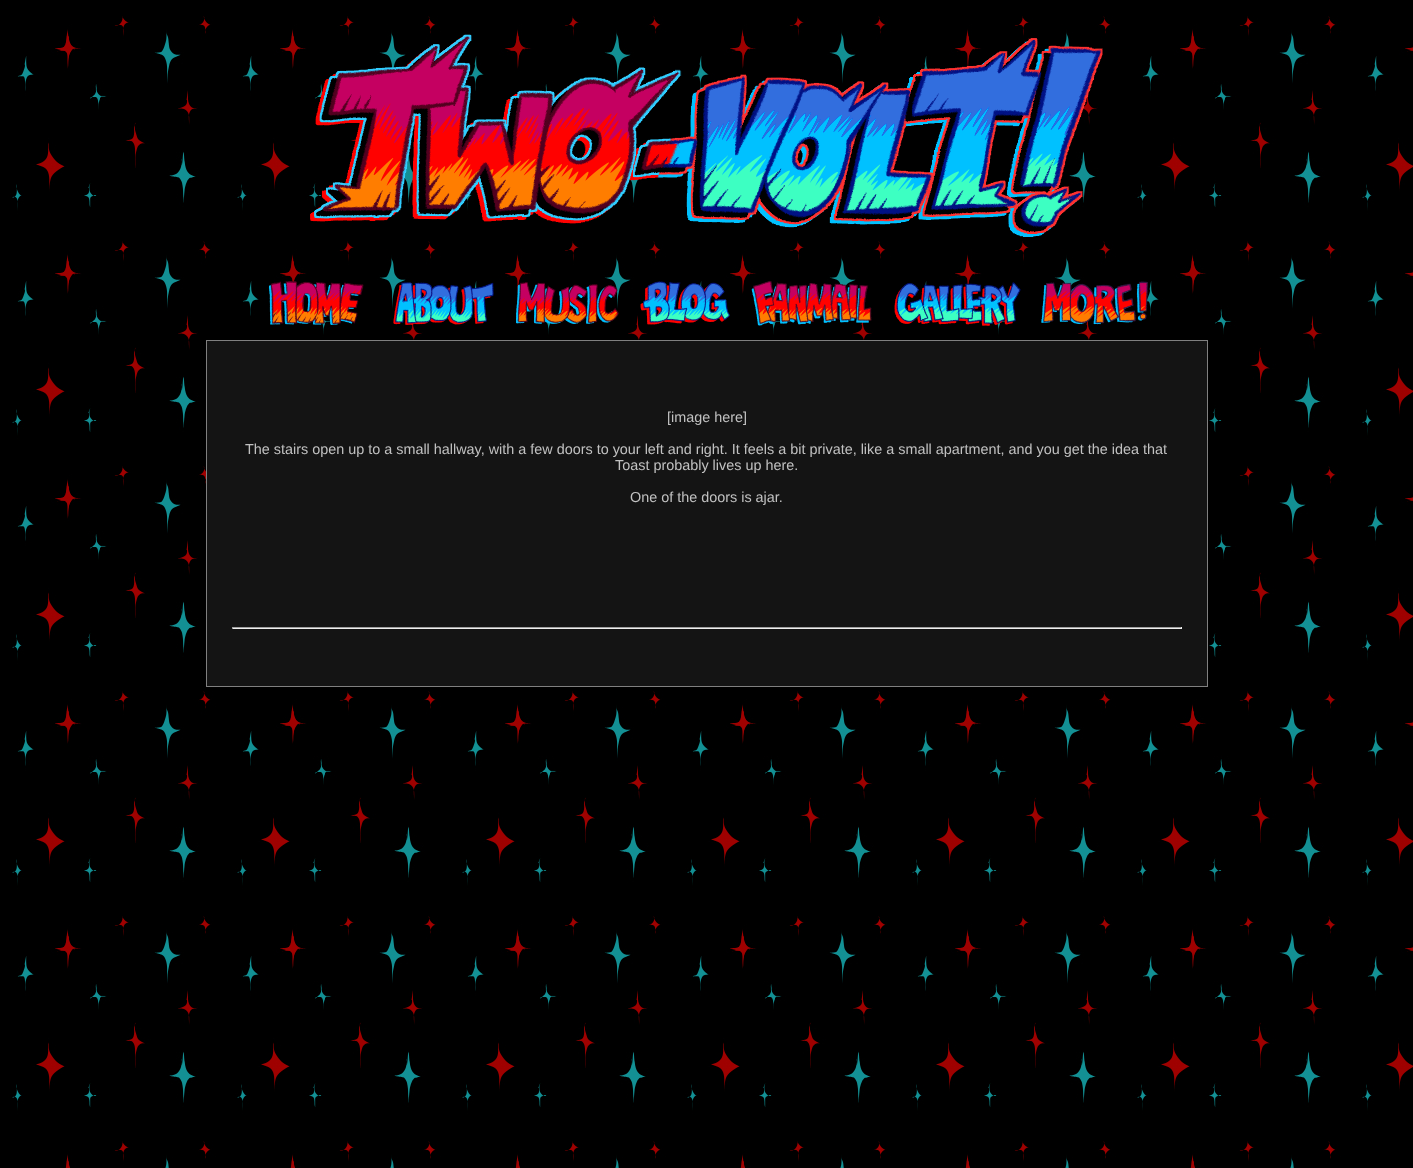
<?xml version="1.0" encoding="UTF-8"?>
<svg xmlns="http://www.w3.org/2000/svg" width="1413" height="1168">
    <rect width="100%" height="100%" fill="#FFFFFF"/>
    <image x="0" y="0" width="1413" height="1168" href="img_01.png"/>
    <image x="310" y="34" width="793" height="203" href="img_02.png"/>
    <image x="268" y="281" width="96" height="44" href="img_03.png"/>
    <image x="393" y="282" width="101" height="43" href="img_04.png"/>
    <image x="516" y="282" width="103" height="42" href="img_05.png"/>
    <image x="640" y="281" width="90" height="44" href="img_06.png"/>
    <image x="751" y="280" width="121" height="46" href="img_07.png"/>
    <image x="894" y="282" width="127" height="44" href="img_08.png"/>
    <image x="1041" y="281" width="107" height="44" href="img_09.png"/>
    <rect x="206.5" y="340.5" width="1001" height="346" fill="#141414" stroke="#808080"/>
    <text x="667" y="422" font-family="Liberation Sans" font-size="14.4" fill="#C1C1C1">[image here]</text>
    <text x="245" y="454" font-family="Liberation Sans" font-size="14.4" fill="#C1C1C1">The stairs open up to a small hallway, with a few doors to your left and right. It feels a bit private, like a small apartment, and you get the idea that</text>
    <text x="615" y="470" font-family="Liberation Sans" font-size="14.4" fill="#C1C1C1">Toast probably lives up here.</text>
    <text x="630" y="502" font-family="Liberation Sans" font-size="14.4" fill="#C1C1C1">One of the doors is ajar.</text>
    <rect x="232" y="627" width="950" height="1" fill="#9F9F9F"/>
    <rect x="1181" y="627" width="1" height="2" fill="#EEEEEE"/>
    <rect x="232" y="628" width="950" height="1" fill="#EEEEEE"/>
    <rect x="232" y="627" width="1" height="2" fill="#9F9F9F"/>
</svg>
